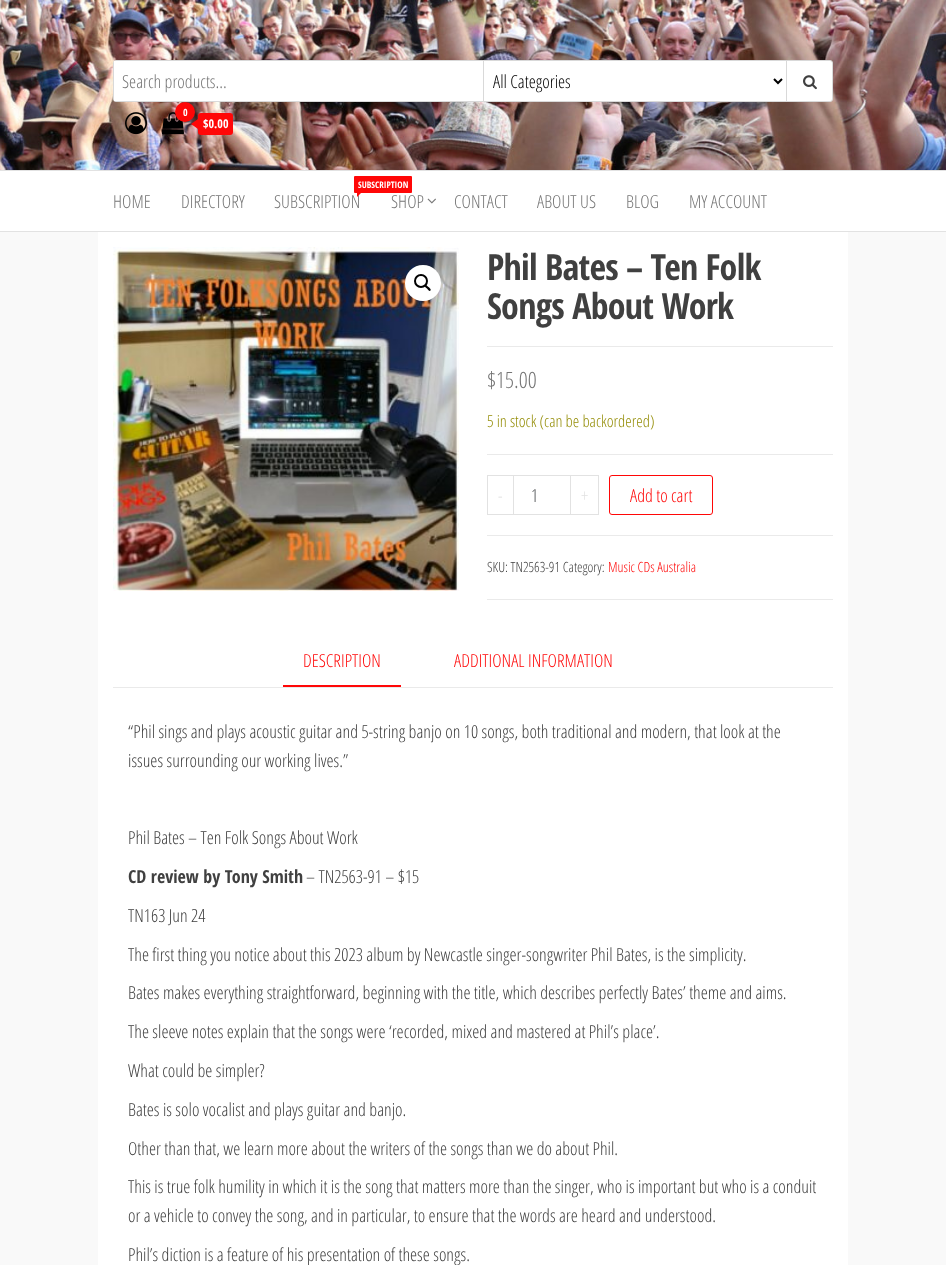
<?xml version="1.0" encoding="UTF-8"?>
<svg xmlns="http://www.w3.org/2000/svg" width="946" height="1265">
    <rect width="100%" height="100%" fill="#F9F9F9"/>
    <image x="0" y="0" width="946" height="170" href="img_01.png"/>
    <rect x="113.5" y="60.5" width="719" height="41" rx="2.5" fill="#FFFFFF" stroke="#D9D9D9"/>
    <rect x="114" y="61" width="2" height="40" fill="#FFFFFF"/>
    <rect x="483" y="61" width="1" height="40" fill="#D9D9D9"/>
    <text x="122" y="88" font-family="Open Sans Condensed" font-size="18" font-weight="300" fill="#757575">Search products...</text>
    <path d="M 774 79 L 778 83 L 782 79" fill="none" stroke="#000000" stroke-width="2"/>
    <text x="493" y="88" font-family="Open Sans Condensed" font-size="18" font-weight="300" fill="#000000">All Categories</text>
    <rect x="786" y="61" width="1" height="40" fill="#D9D9D9"/>
    <image x="803" y="75" width="14" height="15" href="img_02.png"/>
    <image x="125" y="112" width="22" height="23" href="img_03.png"/>
    <image x="162" y="112" width="22" height="23" href="img_04.png"/>
    <circle cx="185" cy="112" r="10" fill="#FF0707"/>
    <text x="183" y="116" font-family="Open Sans Condensed" font-size="10" font-weight="700" fill="#FFFFFF">0</text>
    <rect x="198" y="113" width="35" height="22" rx="3" fill="#FF0707"/>
    <path d="M 198 119 V 129 L 191 124 Z" fill="#FF0707"/>
    <text x="203" y="128" font-family="Open Sans Condensed" font-size="12" font-weight="700" fill="#FFFFFF">$0.00</text>
    <rect x="0" y="171" width="946" height="60" fill="#FFFFFF"/>
    <rect x="0" y="170" width="946" height="1" fill="#E2E2E2"/>
    <rect x="0" y="231" width="946" height="1" fill="#E2E2E2"/>
    <text x="113" y="208" font-family="Open Sans Condensed" font-size="18" font-weight="300" fill="#757575">HOME</text>
    <text x="181" y="208" font-family="Open Sans Condensed" font-size="18" font-weight="300" fill="#757575">DIRECTORY</text>
    <rect x="354" y="176" width="58" height="17" rx="1" fill="#FF0707"/>
    <text x="358" y="188" font-family="Open Sans Condensed" font-size="9" font-weight="700" fill="#FFFFFF">SUBSCRIPTION</text>
    <text x="274" y="208" font-family="Open Sans Condensed" font-size="18" font-weight="300" fill="#757575">SUBSCRIPTION</text>
    <path d="M 357 192 H 362 L 357 197 Z" fill="#FF0707"/>
    <text x="391" y="208" font-family="Open Sans Condensed" font-size="18" font-weight="300" fill="#757575">SHOP</text>
    <image x="427" y="198" width="9" height="6" href="img_05.png"/>
    <text x="454" y="208" font-family="Open Sans Condensed" font-size="18" font-weight="300" fill="#757575">CONTACT</text>
    <text x="537" y="208" font-family="Open Sans Condensed" font-size="18" font-weight="300" fill="#757575">ABOUT US</text>
    <text x="626" y="208" font-family="Open Sans Condensed" font-size="18" font-weight="300" fill="#757575">BLOG</text>
    <text x="689" y="208" font-family="Open Sans Condensed" font-size="18" font-weight="300" fill="#757575">MY ACCOUNT</text>
    <rect x="98" y="232" width="750" height="1033" fill="#FFFFFF"/>
    <image x="113" y="247" width="346" height="344" href="img_06.png"/>
    <circle cx="423" cy="283" r="18" fill="#FFFFFF"/>
    <circle cx="421" cy="281" r="6" fill="none" stroke="#000000" stroke-width="2"/>
    <path d="M 425 285 C 426 284 427.5 286.5 428.5 287 C 429 287.5 431.5 289.5 430.5 290.5 C 429 292 427.5 289 427 288.5 C 426.5 288 423.5 286 425 285 Z" fill="#000000"/>
    <rect x="487" y="346" width="346" height="1" fill="#EAEAEA"/>
    <text font-family="Open Sans Condensed" font-size="36" font-weight="700" letter-spacing="-0.75" fill="#404040">
        <tspan x="487" y="280">Phil Bates – Ten Folk</tspan>
        <tspan x="487" y="319">Songs About Work</tspan>
    </text>
    <text x="487" y="388" font-family="Open Sans Condensed" font-size="22.5" font-weight="300" fill="#757575">$15.00</text>
    <text x="487" y="427" font-family="Open Sans Condensed" font-size="16.5" font-weight="300" fill="#958E09">5 in stock (can be backordered)</text>
    <rect x="487" y="454" width="346" height="1" fill="#EAEAEA"/>
    <rect x="487" y="535" width="346" height="1" fill="#EAEAEA"/>
    <rect x="487.5" y="475.5" width="26" height="39" fill="none" stroke="#E2E2E2"/>
    <text x="498" y="502" font-family="Open Sans Condensed" font-size="18" font-weight="300" fill="#E2E2E2">-</text>
    <rect x="513.5" y="475.5" width="57" height="39" fill="none" stroke="#E2E2E2"/>
    <text x="531" y="502" font-family="Open Sans Condensed" font-size="18" font-weight="300" fill="#464A4C">1</text>
    <rect x="570.5" y="475.5" width="28" height="39" fill="none" stroke="#E2E2E2"/>
    <text x="581" y="502" font-family="Open Sans Condensed" font-size="18" font-weight="300" fill="#E2E2E2">+</text>
    <rect x="609.5" y="475.5" width="103" height="39" rx="2.5" fill="none" stroke="#FF0707"/>
    <text x="630" y="502" font-family="Open Sans Condensed" font-size="18" font-weight="300" fill="#FF0707">Add to cart</text>
    <rect x="487" y="599" width="346" height="1" fill="#EAEAEA"/>
    <text x="487" y="572" font-family="Open Sans Condensed" font-size="14" font-weight="300" fill="#404040">SKU: TN2563-91 Category:</text>
    <text x="608" y="572" font-family="Open Sans Condensed" font-size="14" font-weight="300" fill="#FF0707">Music CDs Australia</text>
    <rect x="113" y="687" width="720" height="1" fill="#EAEAEA"/>
    <rect x="283" y="685" width="118" height="2" fill="#FF0707"/>
    <text x="303" y="667" font-family="Open Sans Condensed" font-size="18" font-weight="300" fill="#FF0707">DESCRIPTION</text>
    <text x="454" y="667" font-family="Open Sans Condensed" font-size="18" font-weight="300" fill="#FF0707">ADDITIONAL INFORMATION</text>
    <text font-family="Open Sans Condensed" font-size="18" font-weight="300" fill="#404040">
        <tspan x="128" y="738">“Phil sings and plays acoustic guitar and 5-string banjo on 10 songs, both traditional and modern, that look at the</tspan>
        <tspan x="128" y="767">issues surrounding our working lives.”</tspan>
    </text>
    <text x="128" y="844" font-family="Open Sans Condensed" font-size="18" font-weight="300" fill="#404040">Phil Bates – Ten Folk Songs About Work</text>
    <text x="128" y="883" font-family="Open Sans Condensed" font-size="18" font-weight="700" fill="#404040">CD review by Tony Smith</text>
    <text x="306" y="883" font-family="Open Sans Condensed" font-size="18" font-weight="300" fill="#404040">– TN2563-91 – $15</text>
    <text x="128" y="922" font-family="Open Sans Condensed" font-size="18" font-weight="300" fill="#404040">TN163 Jun 24</text>
    <text x="128" y="961" font-family="Open Sans Condensed" font-size="18" font-weight="300" fill="#404040">The first thing you notice about this 2023 album by Newcastle singer-songwriter Phil Bates, is the simplicity.</text>
    <text x="128" y="999" font-family="Open Sans Condensed" font-size="18" font-weight="300" fill="#404040">Bates makes everything straightforward, beginning with the title, which describes perfectly Bates’ theme and aims.</text>
    <text x="128" y="1038" font-family="Open Sans Condensed" font-size="18" font-weight="300" fill="#404040">The sleeve notes explain that the songs were ‘recorded, mixed and mastered at Phil’s place’.</text>
    <text x="128" y="1077" font-family="Open Sans Condensed" font-size="18" font-weight="300" fill="#404040">What could be simpler?</text>
    <text x="128" y="1116" font-family="Open Sans Condensed" font-size="18" font-weight="300" fill="#404040">Bates is solo vocalist and plays guitar and banjo.</text>
    <text x="128" y="1155" font-family="Open Sans Condensed" font-size="18" font-weight="300" fill="#404040">Other than that, we learn more about the writers of the songs than we do about Phil.</text>
    <text font-family="Open Sans Condensed" font-size="18" font-weight="300" fill="#404040">
        <tspan x="128" y="1193">This is true folk humility in which it is the song that matters more than the singer, who is important but who is a conduit</tspan>
        <tspan x="128" y="1222">or a vehicle to convey the song, and in particular, to ensure that the words are heard and understood.</tspan>
    </text>
    <text x="128" y="1261" font-family="Open Sans Condensed" font-size="18" font-weight="300" fill="#404040">Phil’s diction is a feature of his presentation of these songs.</text>
</svg>
